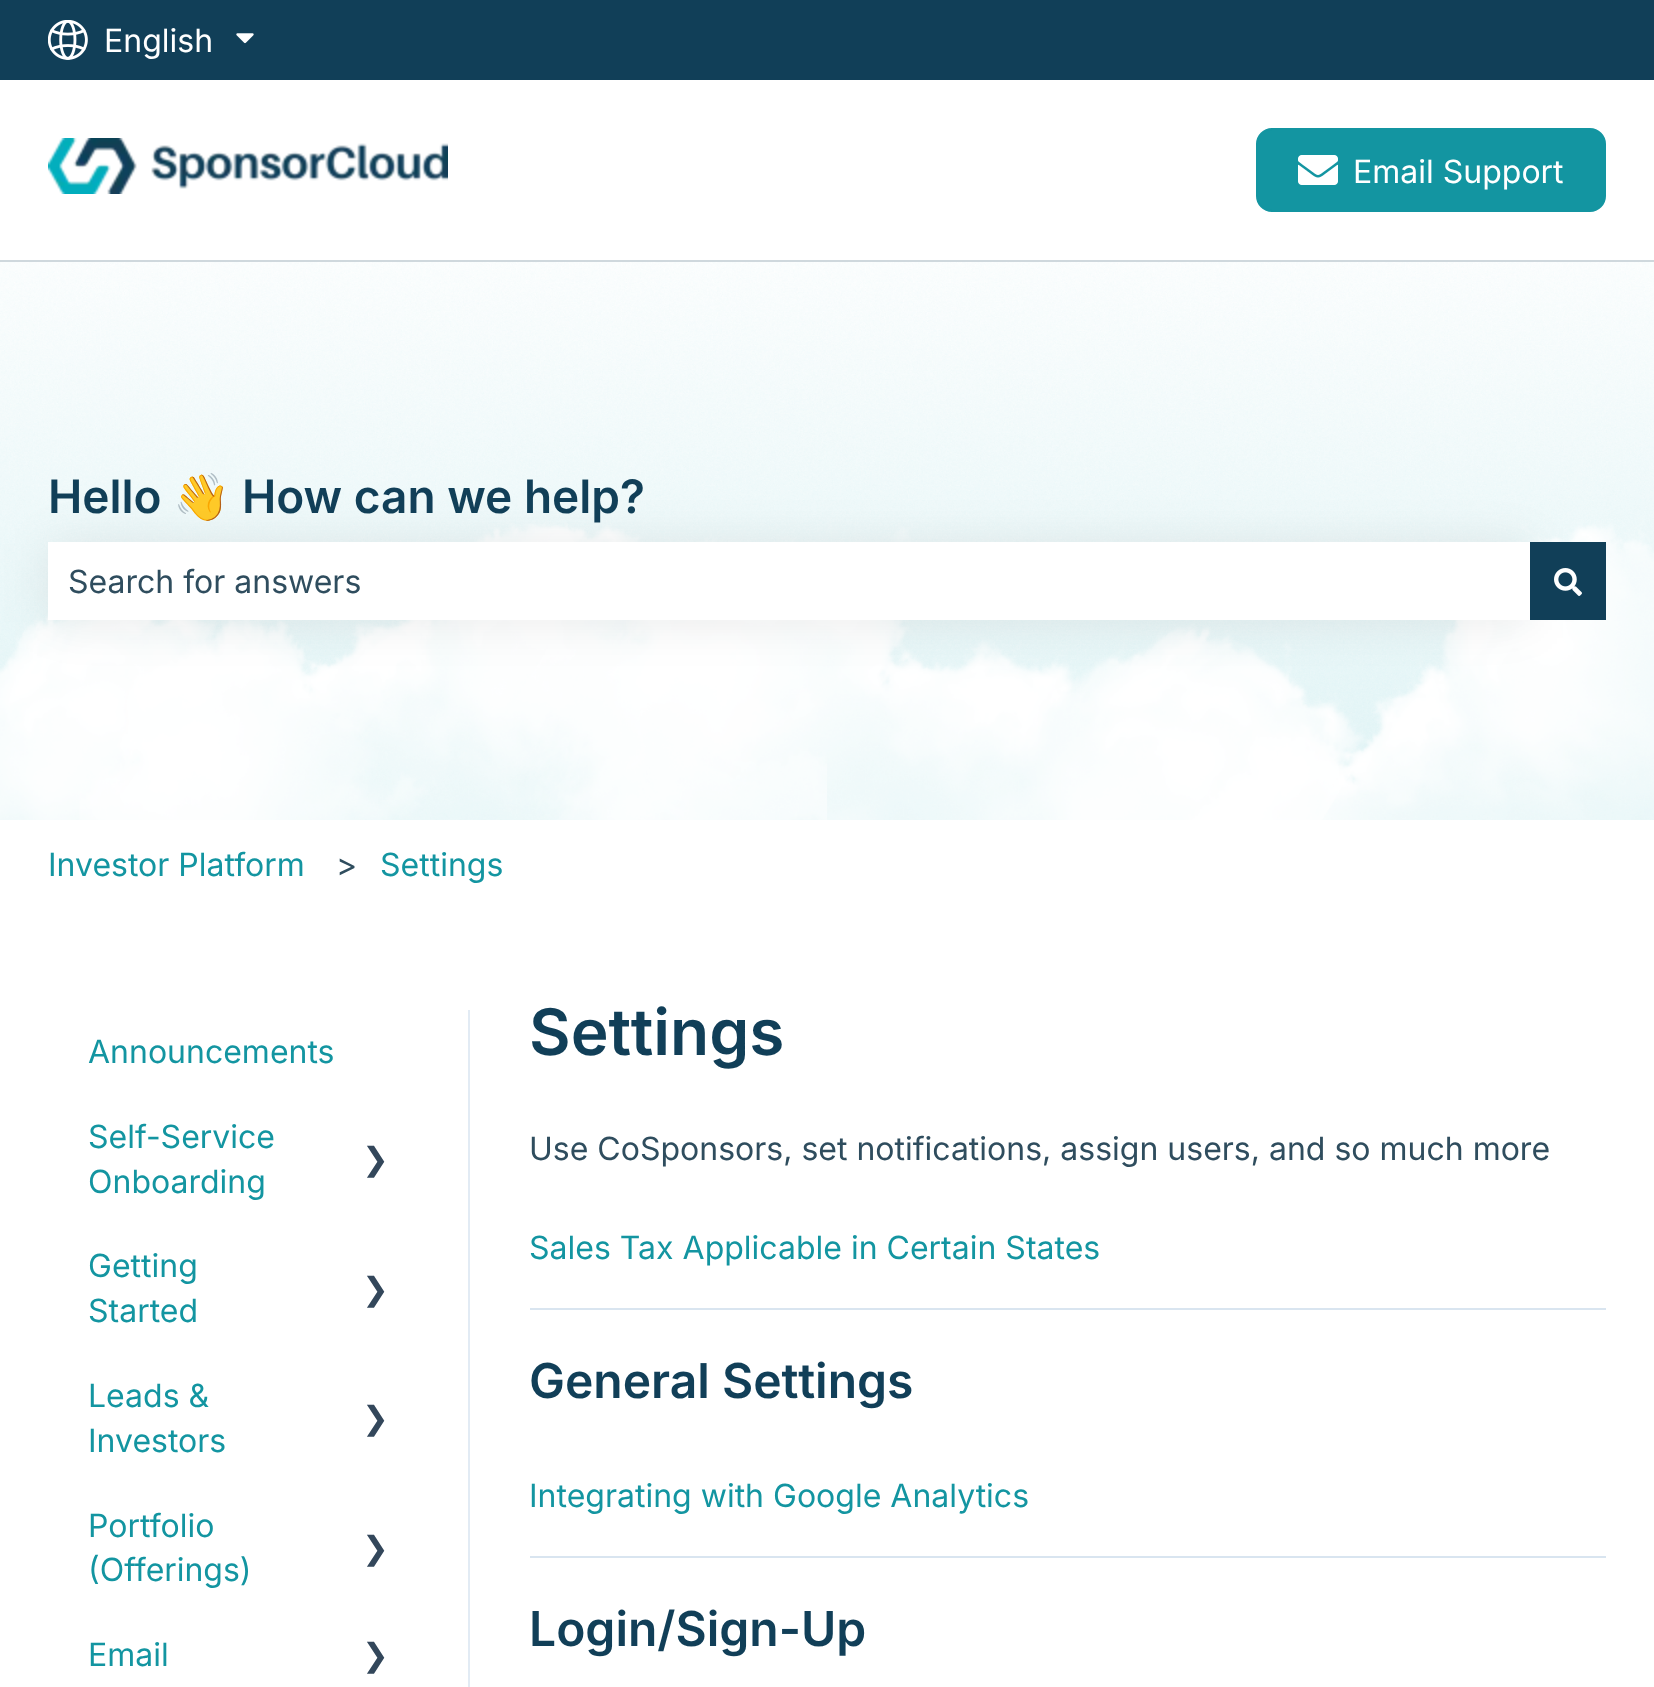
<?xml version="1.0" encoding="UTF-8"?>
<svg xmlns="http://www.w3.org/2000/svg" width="1654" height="1687">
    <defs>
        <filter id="blur1" x="-50%" y="-200%" width="200%" height="500%"><feGaussianBlur stdDeviation="24"/></filter>
    </defs>
    <rect width="100%" height="100%" fill="#FFFFFF"/>
    <rect x="0" y="0" width="1654" height="80" fill="#113F58"/>
    <image x="48" y="20" width="40" height="40" href="img_01.png"/>
    <text x="104" y="52" font-family="Inter" font-size="32" fill="#FFFFFF">English</text>
    <image x="236" y="33" width="18" height="11" href="img_02.png"/>
    <rect x="0" y="260" width="1654" height="2" fill="#CFD8DD"/>
    <image x="48" y="138" width="400" height="56" href="img_03.png"/>
    <rect x="1257" y="129" width="348" height="82" rx="15" fill="#1395A1" stroke="#1395A1" stroke-width="2"/>
    <image x="1298" y="155" width="40" height="30" href="img_04.png"/>
    <text x="1353" y="183" font-family="Inter" font-size="32" fill="#FFFFFF">Email Support</text>
    <image x="0" y="262" width="1654" height="558" href="img_05.png"/>
    <text x="48" y="513" font-family="Inter" font-size="46" font-weight="600" fill="#113F58">Hello</text>
    <text x="173" y="513" font-family="Noto Color Emoji" font-size="46" font-weight="700" fill="#113F58">👋</text>
    <text x="242" y="513" font-family="Inter" font-size="46" font-weight="600" fill="#113F58">How can we help?</text>
    <rect x="48" y="544" width="1482" height="78" fill="#000000" fill-opacity="0.08" filter="url(#blur1)"/>
    <rect x="48" y="542" width="1482" height="78" fill="#FFFFFF"/>
    <text x="68" y="593" font-family="Inter" font-size="32" fill="#2F4D5E">Search for answers</text>
    <rect x="1530" y="542" width="76" height="78" fill="#113F58"/>
    <image x="1554" y="568" width="28" height="28" href="img_06.png"/>
    <text x="48" y="876" font-family="Inter" font-size="32" fill="#1395A1">Investor Platform</text>
    <text x="336" y="876" font-family="Inter" font-size="32" fill="#2F4D5E">&gt;</text>
    <text x="380" y="876" font-family="Inter" font-size="32" fill="#1395A1">Settings</text>
    <rect x="468" y="1010" width="2" height="677" fill="#E2EBF4"/>
    <text x="88" y="1063" font-family="Inter" font-size="32" fill="#1395A1">Announcements</text>
    <text font-family="Inter" font-size="32" fill="#1395A1">
        <tspan x="88" y="1148">Self-Service</tspan>
        <tspan x="88" y="1193">Onboarding</tspan>
    </text>
    <text x="362" y="1170" font-family="DejaVu Sans" font-size="32" fill="#33475B">❯</text>
    <text font-family="Inter" font-size="32" fill="#1395A1">
        <tspan x="88" y="1277">Getting</tspan>
        <tspan x="88" y="1322">Started</tspan>
    </text>
    <text x="362" y="1300" font-family="DejaVu Sans" font-size="32" fill="#33475B">❯</text>
    <text font-family="Inter" font-size="32" fill="#1395A1">
        <tspan x="88" y="1407">Leads &amp;</tspan>
        <tspan x="88" y="1452">Investors</tspan>
    </text>
    <text x="362" y="1429" font-family="DejaVu Sans" font-size="32" fill="#33475B">❯</text>
    <text font-family="Inter" font-size="32" fill="#1395A1">
        <tspan x="88" y="1537">Portfolio</tspan>
        <tspan x="88" y="1581">(Offerings)</tspan>
    </text>
    <text x="362" y="1559" font-family="DejaVu Sans" font-size="32" fill="#33475B">❯</text>
    <text x="88" y="1666" font-family="Inter" font-size="32" fill="#1395A1">Email</text>
    <text x="362" y="1666" font-family="DejaVu Sans" font-size="32" fill="#33475B">❯</text>
    <rect x="530" y="1308" width="1076" height="2" fill="#D9E5F0"/>
    <text x="529" y="1055" font-family="Inter" font-size="64" font-weight="600" fill="#113F58">Settings</text>
    <text x="529" y="1160" font-family="Inter" font-size="32" fill="#2F4D5E">Use CoSponsors, set notifications, assign users, and so much more</text>
    <text x="529" y="1259" font-family="Inter" font-size="32" fill="#1395A1">Sales Tax Applicable in Certain States</text>
    <rect x="530" y="1556" width="1076" height="2" fill="#D9E5F0"/>
    <text x="529" y="1398" font-family="Inter" font-size="48" font-weight="600" fill="#113F58">General Settings</text>
    <text x="529" y="1507" font-family="Inter" font-size="32" fill="#1395A1">Integrating with Google Analytics</text>
    <text x="529" y="1646" font-family="Inter" font-size="48" font-weight="600" fill="#113F58">Login/Sign-Up</text>
</svg>
